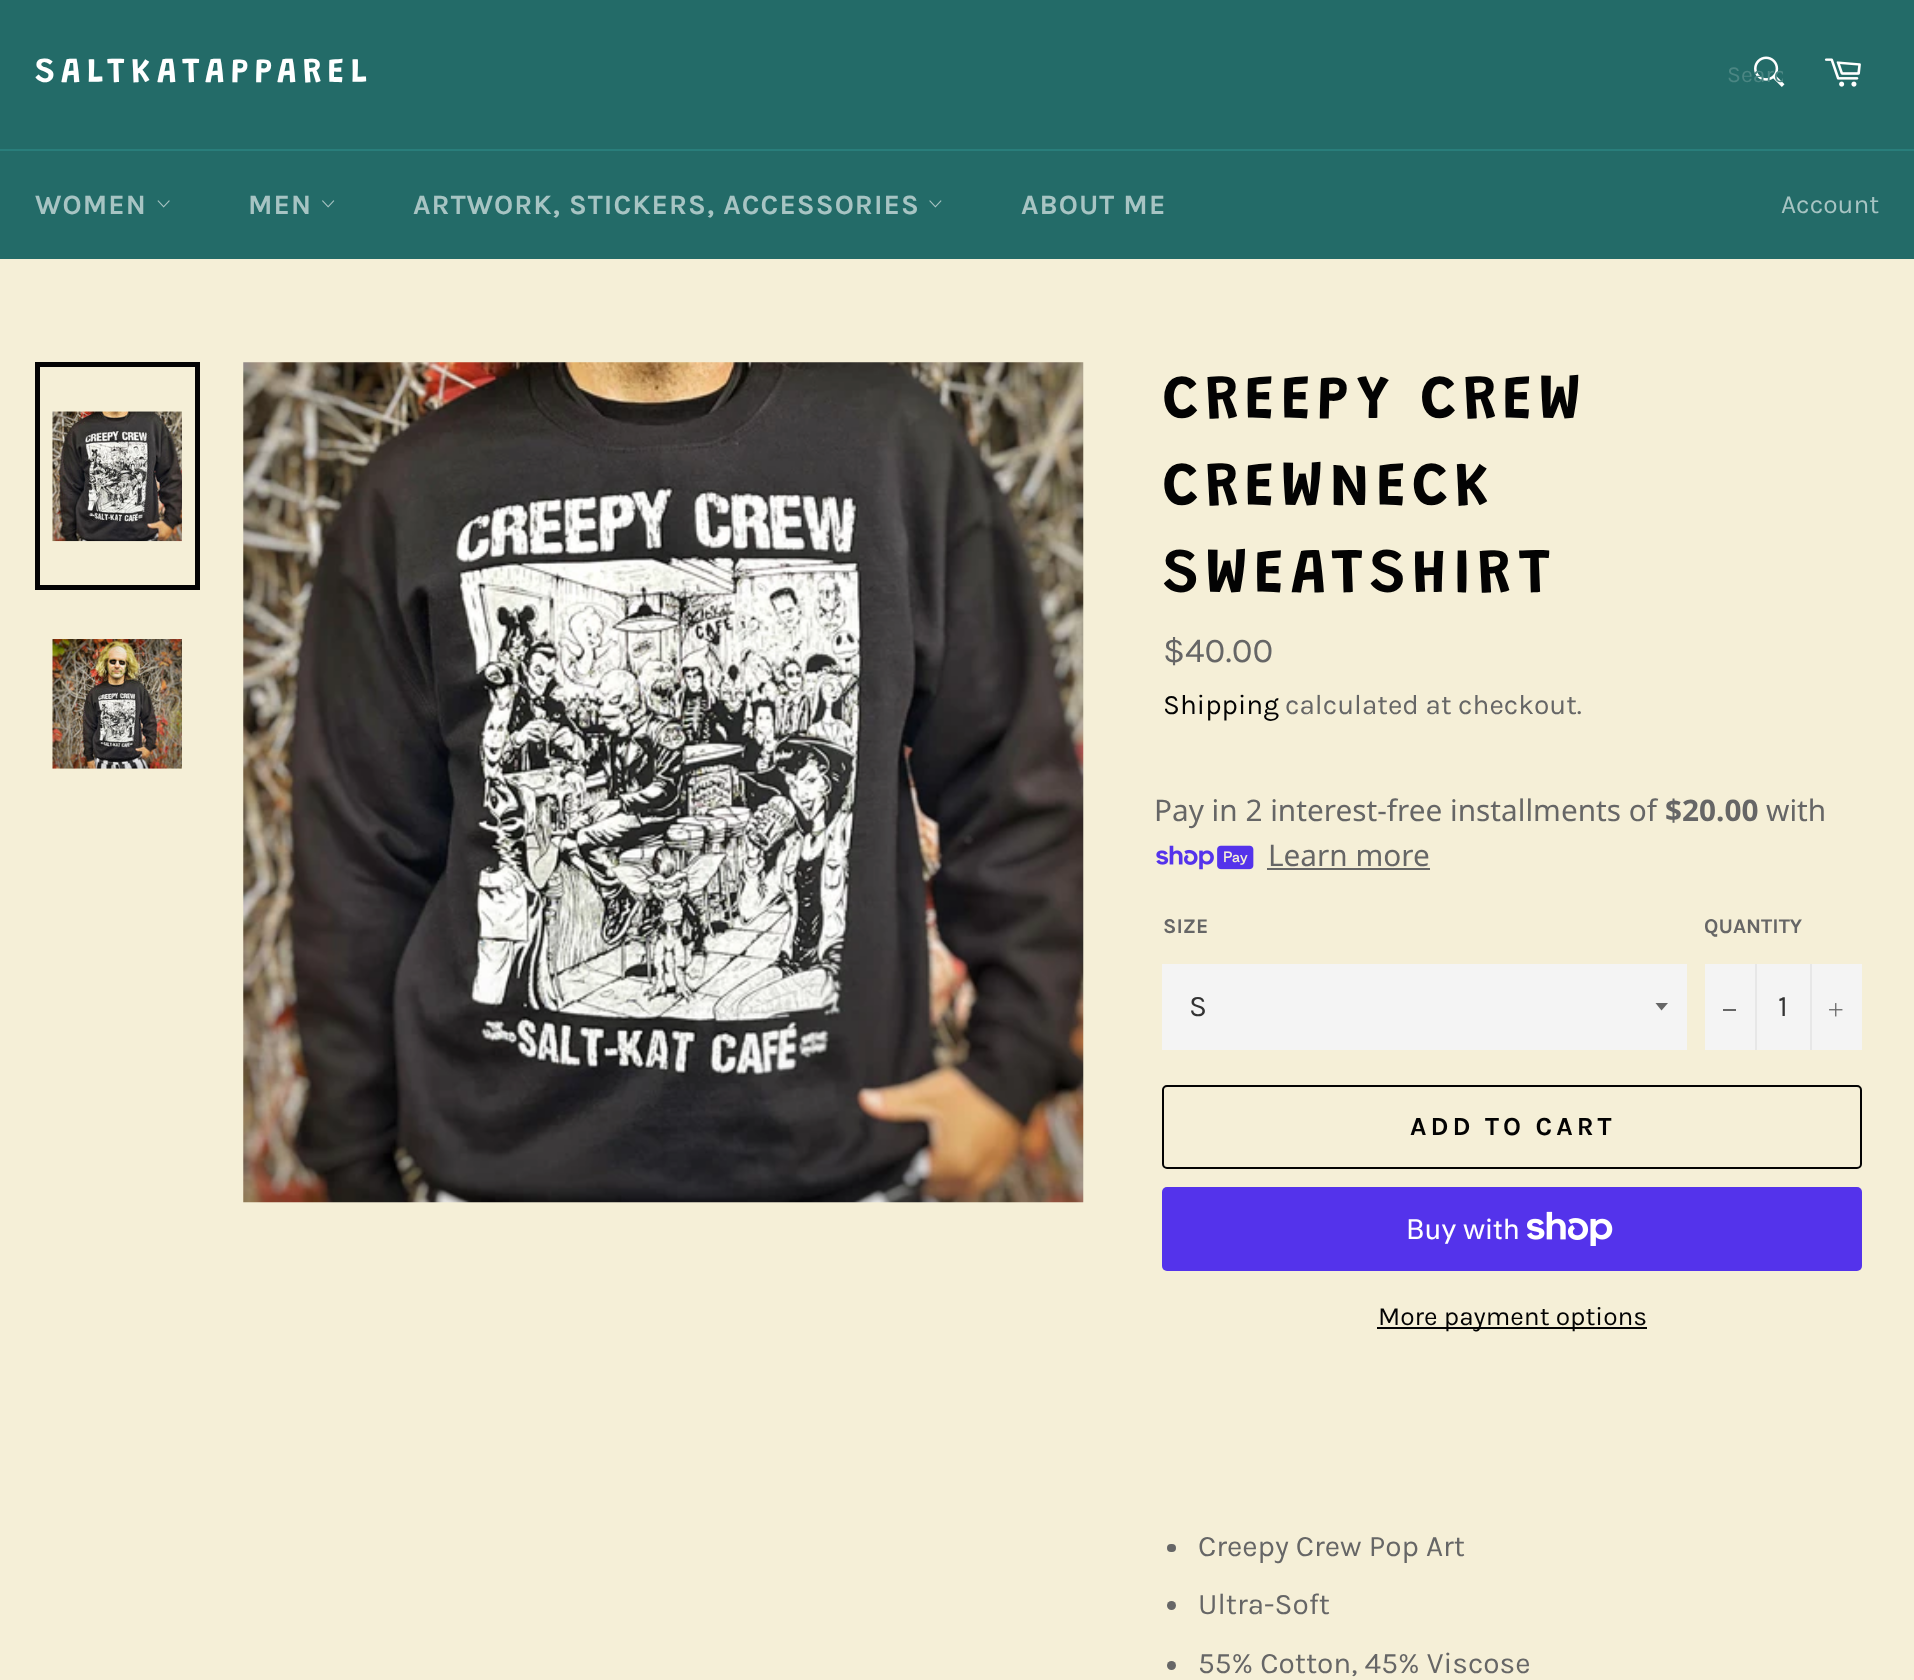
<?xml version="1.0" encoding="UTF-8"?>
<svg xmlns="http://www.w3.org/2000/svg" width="1914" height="1680">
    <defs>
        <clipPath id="clip1"><rect x="1727" y="61" width="56" height="27"/></clipPath>
    </defs>
    <rect width="100%" height="100%" fill="#F5EFD7"/>
    <rect x="0" y="0" width="1914" height="149" fill="#236B68"/>
    <text x="35" y="82" font-family="Grandstander" font-size="35" font-weight="600" letter-spacing="6.25" fill="#FFFFFF">SALTKATAPPAREL</text>
    <image x="1754" y="56" width="31" height="31" href="img_01.png"/>
    <g clip-path="url(#clip1)">
        <text x="1727" y="82" font-family="Karla" font-size="23" fill="#4B8683">Searc</text>
    </g>
    <image x="1824" y="58" width="37" height="29" href="img_02.png"/>
    <rect x="0" y="151" width="1914" height="108" fill="#236B68"/>
    <rect x="0" y="149" width="1914" height="2" fill="#297E7B"/>
    <text x="35" y="214" font-family="Karla" font-size="28" font-weight="700" letter-spacing="1.05" fill="#A7C4C3">WOMEN</text>
    <image x="157" y="200" width="13" height="8" href="img_03.png"/>
    <text x="248" y="214" font-family="Karla" font-size="28" font-weight="700" letter-spacing="1.05" fill="#A7C4C3">MEN</text>
    <image x="322" y="200" width="13" height="8" href="img_04.png"/>
    <text x="413" y="214" font-family="Karla" font-size="28" font-weight="700" letter-spacing="1.05" fill="#A7C4C3">ARTWORK, STICKERS, ACCESSORIES</text>
    <image x="929" y="200" width="13" height="8" href="img_05.png"/>
    <text x="1021" y="214" font-family="Karla" font-size="28" font-weight="700" letter-spacing="1.05" fill="#A7C4C3">ABOUT ME</text>
    <text x="1781" y="213" font-family="Karla" font-size="26.25" fill="#A7C4C3">Account</text>
    <image x="52" y="411" width="130" height="131" href="img_06.png"/>
    <rect x="37.5" y="364.5" width="160" height="223" fill="none" stroke="#030303" stroke-width="5"/>
    <image x="52" y="639" width="130" height="130" href="img_07.png"/>
    <image x="243" y="362" width="841" height="841" href="img_08.png"/>
    <text font-family="Grandstander" font-size="63" font-weight="600" letter-spacing="6.25" fill="#030303">
        <tspan x="1163" y="418">CREEPY CREW</tspan>
        <tspan x="1163" y="505">CREWNECK</tspan>
        <tspan x="1163" y="592">SWEATSHIRT</tspan>
    </text>
    <text x="1163" y="662" font-family="Karla" font-size="35" fill="#666666">$40.00</text>
    <text x="1163" y="714" font-family="Karla" font-size="28" fill="#030303">Shipping</text>
    <text x="1285" y="714" font-family="Karla" font-size="28" fill="#666666">calculated at checkout.</text>
    <text x="1154" y="821" font-family="Noto Sans" font-size="29.75" fill="#666666">Pay in 2 interest-free installments of</text>
    <text x="1665" y="821" font-family="Noto Sans" font-size="29.75" font-weight="700" fill="#666666">$20.00</text>
    <text x="1766" y="821" font-family="Noto Sans" font-size="29.75" fill="#666666">with</text>
    <image x="1156" y="845" width="98" height="25" href="img_09.png"/>
    <text x="1268" y="866" font-family="Noto Sans" font-size="29.75" fill="#666666">Learn more</text>
    <rect x="1267" y="868" width="163" height="2" fill="#666666"/>
    <text x="1163" y="933" font-family="Karla" font-size="21" font-weight="700" fill="#666666">SIZE</text>
    <rect x="1162" y="964" width="525" height="86" fill="#F4F4F4"/>
    <path d="M 1655.5 1003 L 1661.5 1010.5 L 1668 1003 Z" fill="#666666"/>
    <text x="1189" y="1016" font-family="Karla" font-size="29.75" fill="#333333">S</text>
    <text x="1704" y="933" font-family="Karla" font-size="21" font-weight="700" fill="#666666">QUANTITY</text>
    <rect x="1705" y="964" width="157" height="86" fill="#F4F4F4"/>
    <rect x="1755" y="964" width="2" height="86" fill="#E7E7E7"/>
    <rect x="1723" y="1009" width="13" height="2" fill="#666666"/>
    <text x="1778" y="1016" font-family="Karla" font-size="29.75" fill="#333333">1</text>
    <rect x="1810" y="964" width="2" height="86" fill="#E7E7E7"/>
    <image x="1829" y="1003" width="14" height="14" href="img_10.png"/>
    <rect x="1163" y="1086" width="698" height="82" rx="4" fill="none" stroke="#030303" stroke-width="2"/>
    <text x="1410" y="1135" font-family="Karla" font-size="26.25" font-weight="700" letter-spacing="4" fill="#030303">ADD TO CART</text>
    <rect x="1162" y="1187" width="700" height="84" rx="5" fill="#5433EB"/>
    <text x="1406" y="1239" font-family="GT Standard" font-size="28" fill="#FFFFFF">Buy with</text>
    <image x="1527" y="1211" width="86" height="35" href="img_11.png"/>
    <rect x="1377" y="1327" width="270" height="2" fill="#030303"/>
    <text x="1378" y="1325" font-family="Karla" font-size="26.25" fill="#030303">More payment options</text>
    <rect x="1167" y="1544" width="9" height="8" rx="4" fill="#666666"/>
    <text x="1198" y="1556" font-family="Karla" font-size="29.75" fill="#666666">Creepy Crew Pop Art</text>
    <circle cx="1171.5" cy="1605.5" r="4.5" fill="#666666"/>
    <text x="1198" y="1614" font-family="Karla" font-size="29.75" fill="#666666">Ultra-Soft</text>
    <circle cx="1171.5" cy="1665.5" r="4.5" fill="#666666"/>
    <text x="1198" y="1673" font-family="Karla" font-size="29.75" fill="#666666">55% Cotton, 45% Viscose</text>
</svg>
